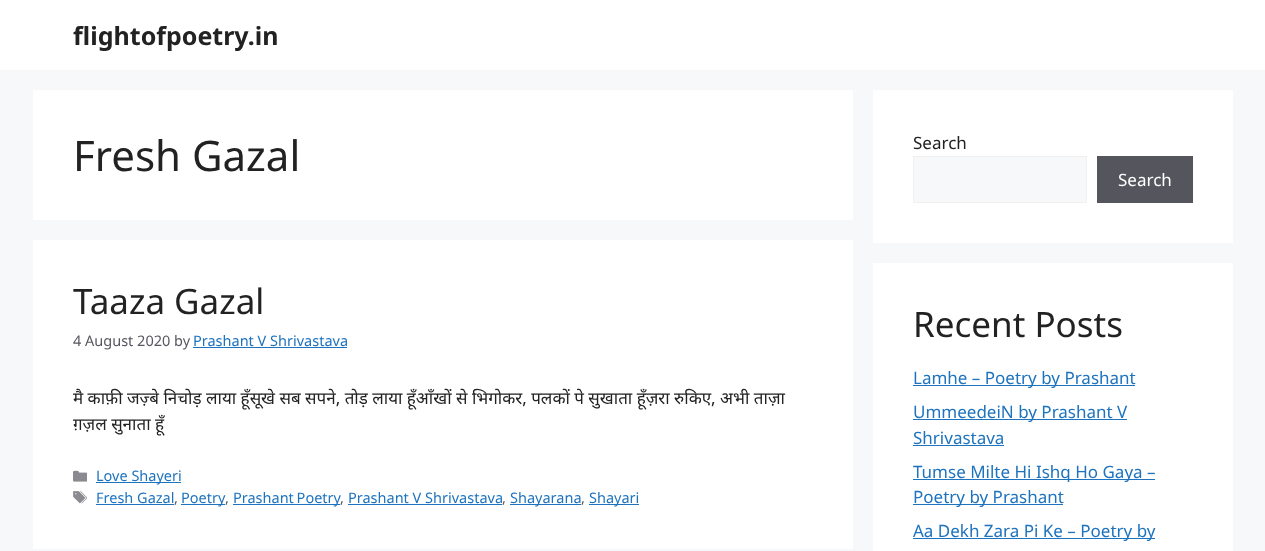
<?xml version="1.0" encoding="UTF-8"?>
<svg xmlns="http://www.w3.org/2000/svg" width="1265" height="551">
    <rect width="100%" height="100%" fill="#F7F8F9"/>
    <rect x="0" y="0" width="1265" height="70" fill="#FFFFFF"/>
    <text x="73" y="45" font-family="Noto Sans" font-size="25" font-weight="700" fill="#222222">flightofpoetry.in</text>
    <rect x="33" y="90" width="820" height="130" fill="#FFFFFF"/>
    <text x="73" y="171" font-family="Noto Sans" font-size="42" fill="#222222">Fresh Gazal</text>
    <rect x="33" y="240" width="820" height="309" fill="#FFFFFF"/>
    <text x="73" y="314" font-family="Noto Sans" font-size="35" fill="#222222">Taaza Gazal</text>
    <text x="73" y="346" font-family="Noto Sans" font-size="14.5" fill="#575760">4 August 2020 by</text>
    <text x="193" y="346" font-family="Noto Sans" font-size="14.5" fill="#1E73BE">Prashant V Shrivastava</text>
    <rect x="193" y="347" width="154" height="1" fill="#1E73BE"/>
    <text font-family="Noto Sans" font-size="17" fill="#222222">
        <tspan x="73" y="404">मै काफ़ी जज़्बे निचोड़ लाया हूँसूखे सब सपने, तोड़ लाया हूँआँखों से भिगोकर, पलकों पे सुखाता हूँज़रा रुकिए, अभी ताज़ा</tspan>
        <tspan x="73" y="430">ग़ज़ल सुनाता हूँ</tspan>
    </text>
    <image x="73" y="470" width="14" height="12" href="img_01.png"/>
    <rect x="96" y="482" width="85" height="1" fill="#1E73BE"/>
    <text x="96" y="481" font-family="Noto Sans" font-size="14.5" fill="#1E73BE">Love Shayeri</text>
    <image x="73" y="491" width="14" height="13" href="img_02.png"/>
    <text x="96" y="503" font-family="Noto Sans" font-size="14.5" fill="#1E73BE">Fresh Gazal</text>
    <rect x="96" y="504" width="78" height="1" fill="#1E73BE"/>
    <text x="174" y="503" font-family="Noto Sans" font-size="14.5" fill="#575760">,</text>
    <rect x="181" y="504" width="44" height="1" fill="#1E73BE"/>
    <text x="181" y="503" font-family="Noto Sans" font-size="14.5" fill="#1E73BE">Poetry</text>
    <text x="225" y="503" font-family="Noto Sans" font-size="14.5" fill="#575760">,</text>
    <rect x="233" y="504" width="107" height="1" fill="#1E73BE"/>
    <text x="233" y="503" word-spacing="-1" font-family="Noto Sans" font-size="14.5" fill="#1E73BE">Prashant Poetry</text>
    <text x="340" y="503" font-family="Noto Sans" font-size="14.5" fill="#575760">,</text>
    <text x="348" y="503" font-family="Noto Sans" font-size="14.5" fill="#1E73BE">Prashant V Shrivastava</text>
    <rect x="348" y="504" width="154" height="1" fill="#1E73BE"/>
    <text x="502" y="503" font-family="Noto Sans" font-size="14.5" fill="#575760">,</text>
    <rect x="510" y="504" width="71" height="1" fill="#1E73BE"/>
    <text x="510" y="503" font-family="Noto Sans" font-size="14.5" fill="#1E73BE">Shayarana</text>
    <text x="581" y="503" font-family="Noto Sans" font-size="14.5" fill="#575760">,</text>
    <rect x="589" y="504" width="50" height="1" fill="#1E73BE"/>
    <text x="589" y="503" font-family="Noto Sans" font-size="14.5" fill="#1E73BE">Shayari</text>
    <rect x="873" y="90" width="360" height="153" fill="#FFFFFF"/>
    <text x="913" y="149" font-family="Noto Sans" font-size="17" fill="#222222">Search</text>
    <rect x="913.5" y="156.5" width="173" height="46" fill="#F7F8F9" stroke="#F0F0F0"/>
    <rect x="1097" y="156" width="96" height="47" fill="#55555E"/>
    <text x="1118" y="186" font-family="Noto Sans" font-size="17" fill="#FFFFFF">Search</text>
    <rect x="873" y="263" width="360" height="288" fill="#FFFFFF"/>
    <text x="913" y="337" font-family="Noto Sans" font-size="35" fill="#222222">Recent Posts</text>
    <rect x="913" y="385" width="222" height="1" fill="#1E73BE"/>
    <text x="913" y="384" font-family="Noto Sans" font-size="17" fill="#1E73BE">Lamhe – Poetry by Prashant</text>
    <rect x="913" y="419" width="214" height="1" fill="#1E73BE"/>
    <text font-family="Noto Sans" font-size="17" fill="#1E73BE">
        <tspan x="913" y="418">UmmeedeiN by Prashant V</tspan>
        <tspan x="913" y="444">Shrivastava</tspan>
    </text>
    <rect x="913" y="445" width="91" height="1" fill="#1E73BE"/>
    <rect x="913" y="479" width="242" height="1" fill="#1E73BE"/>
    <text x="913" y="478" font-family="Noto Sans" font-size="17" fill="#1E73BE">Tumse Milte Hi Ishq Ho Gaya –</text>
    <rect x="913" y="504" width="150" height="1" fill="#1E73BE"/>
    <text x="913" y="503" font-family="Noto Sans" font-size="17" fill="#1E73BE">Poetry by Prashant</text>
    <rect x="913" y="538" width="242" height="1" fill="#1E73BE"/>
    <text x="913" y="537" font-family="Noto Sans" font-size="17" fill="#1E73BE">Aa Dekh Zara Pi Ke – Poetry by</text>
</svg>
